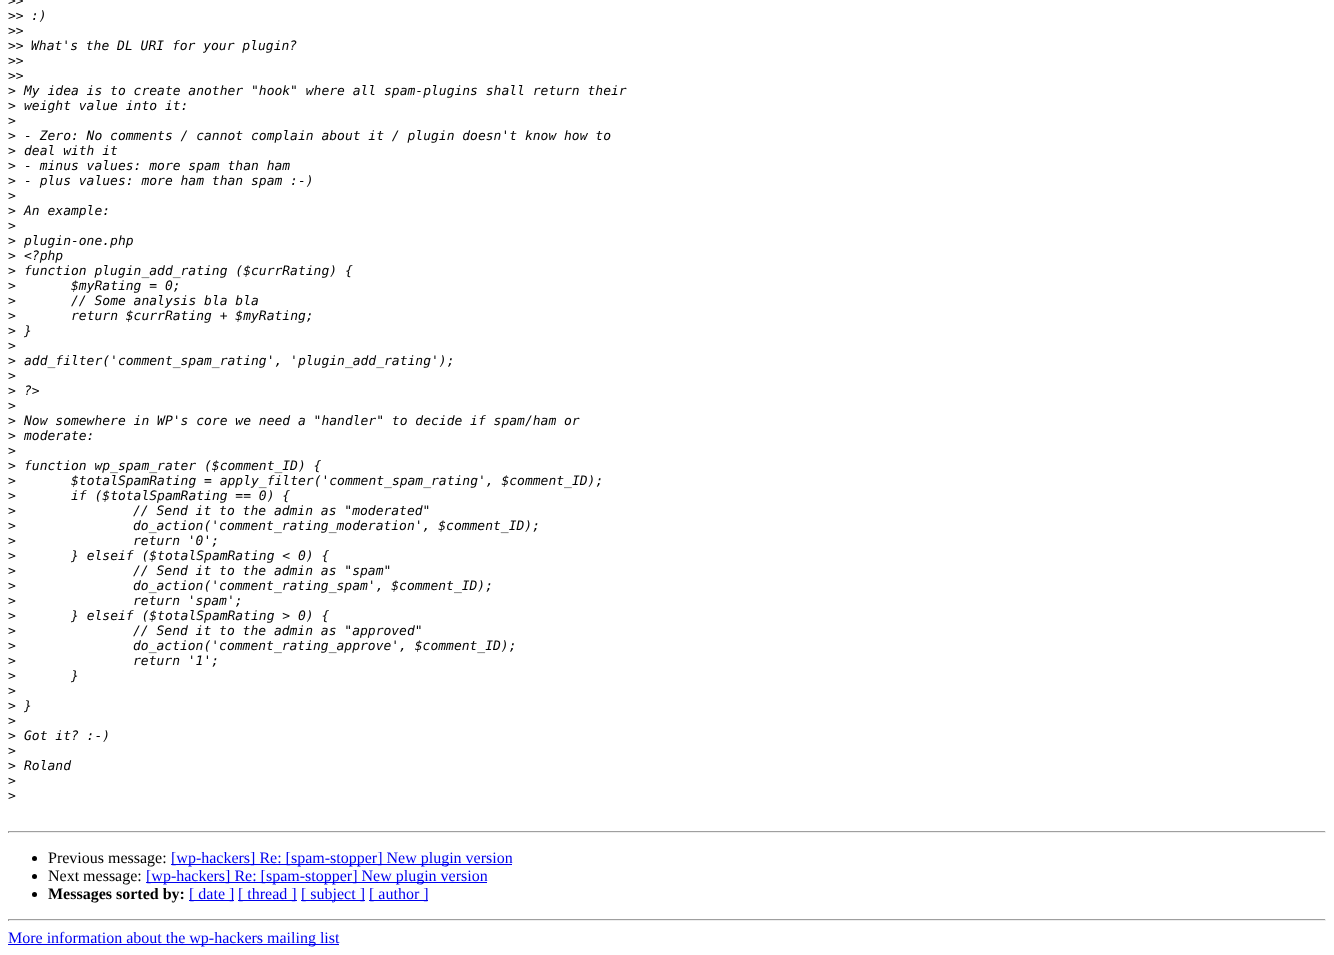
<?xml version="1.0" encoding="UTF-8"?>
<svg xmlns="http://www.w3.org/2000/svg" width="1334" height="955">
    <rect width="100%" height="100%" fill="#FFFFFF"/>
    <text font-family="DejaVu Sans Mono" font-size="13" fill="#000000">
        <tspan x="8" y="5">&gt;&gt;</tspan>
        <tspan x="8" y="20">&gt;&gt;</tspan>
    </text>
    <text x="31" y="20" font-family="DejaVu Sans Mono" font-size="13" font-style="italic" fill="#000000">:)</text>
    <text font-family="DejaVu Sans Mono" font-size="13" fill="#000000">
        <tspan x="8" y="35">&gt;&gt;</tspan>
        <tspan x="8" y="50">&gt;&gt;</tspan>
    </text>
    <text x="31" y="50" font-family="DejaVu Sans Mono" font-size="13" font-style="italic" fill="#000000">What's the DL URI for your plugin?</text>
    <text font-family="DejaVu Sans Mono" font-size="13" fill="#000000">
        <tspan x="8" y="65">&gt;&gt;</tspan>
        <tspan x="8" y="80">&gt;&gt;</tspan>
        <tspan x="8" y="95">&gt;</tspan>
    </text>
    <text x="24" y="95" font-family="DejaVu Sans Mono" font-size="13" font-style="italic" fill="#000000">My idea is to create another "hook" where all spam-plugins shall return their</text>
    <text x="8" y="110" font-family="DejaVu Sans Mono" font-size="13" fill="#000000">&gt;</text>
    <text x="24" y="110" font-family="DejaVu Sans Mono" font-size="13" font-style="italic" fill="#000000">weight value into it:</text>
    <text font-family="DejaVu Sans Mono" font-size="13" fill="#000000">
        <tspan x="8" y="125">&gt;</tspan>
        <tspan x="8" y="140">&gt;</tspan>
    </text>
    <text x="24" y="140" font-family="DejaVu Sans Mono" font-size="13" font-style="italic" fill="#000000">- Zero: No comments / cannot complain about it / plugin doesn't know how to</text>
    <text x="8" y="155" font-family="DejaVu Sans Mono" font-size="13" fill="#000000">&gt;</text>
    <text x="24" y="155" font-family="DejaVu Sans Mono" font-size="13" font-style="italic" fill="#000000">deal with it</text>
    <text x="8" y="170" font-family="DejaVu Sans Mono" font-size="13" fill="#000000">&gt;</text>
    <text x="24" y="170" font-family="DejaVu Sans Mono" font-size="13" font-style="italic" fill="#000000">- minus values: more spam than ham</text>
    <text x="8" y="185" font-family="DejaVu Sans Mono" font-size="13" fill="#000000">&gt;</text>
    <text x="24" y="185" font-family="DejaVu Sans Mono" font-size="13" font-style="italic" fill="#000000">- plus values: more ham than spam :-)</text>
    <text font-family="DejaVu Sans Mono" font-size="13" fill="#000000">
        <tspan x="8" y="200">&gt;</tspan>
        <tspan x="8" y="215">&gt;</tspan>
    </text>
    <text x="24" y="215" font-family="DejaVu Sans Mono" font-size="13" font-style="italic" fill="#000000">An example:</text>
    <text font-family="DejaVu Sans Mono" font-size="13" fill="#000000">
        <tspan x="8" y="230">&gt;</tspan>
        <tspan x="8" y="245">&gt;</tspan>
    </text>
    <text x="24" y="245" font-family="DejaVu Sans Mono" font-size="13" font-style="italic" fill="#000000">plugin-one.php</text>
    <text x="8" y="260" font-family="DejaVu Sans Mono" font-size="13" fill="#000000">&gt;</text>
    <text x="24" y="260" font-family="DejaVu Sans Mono" font-size="13" font-style="italic" fill="#000000">&lt;?php</text>
    <text x="8" y="275" font-family="DejaVu Sans Mono" font-size="13" fill="#000000">&gt;</text>
    <text x="24" y="275" font-family="DejaVu Sans Mono" font-size="13" font-style="italic" fill="#000000">function plugin_add_rating ($currRating) {</text>
    <text x="8" y="290" font-family="DejaVu Sans Mono" font-size="13" fill="#000000">&gt;</text>
    <text x="71" y="290" font-family="DejaVu Sans Mono" font-size="13" font-style="italic" fill="#000000">$myRating = 0;</text>
    <text x="8" y="305" font-family="DejaVu Sans Mono" font-size="13" fill="#000000">&gt;</text>
    <text x="71" y="305" font-family="DejaVu Sans Mono" font-size="13" font-style="italic" fill="#000000">// Some analysis bla bla</text>
    <text x="8" y="320" font-family="DejaVu Sans Mono" font-size="13" fill="#000000">&gt;</text>
    <text x="71" y="320" font-family="DejaVu Sans Mono" font-size="13" font-style="italic" fill="#000000">return $currRating + $myRating;</text>
    <text x="8" y="335" font-family="DejaVu Sans Mono" font-size="13" fill="#000000">&gt;</text>
    <text x="24" y="335" font-family="DejaVu Sans Mono" font-size="13" font-style="italic" fill="#000000">}</text>
    <text font-family="DejaVu Sans Mono" font-size="13" fill="#000000">
        <tspan x="8" y="350">&gt;</tspan>
        <tspan x="8" y="365">&gt;</tspan>
    </text>
    <text x="24" y="365" font-family="DejaVu Sans Mono" font-size="13" font-style="italic" fill="#000000">add_filter('comment_spam_rating', 'plugin_add_rating');</text>
    <text font-family="DejaVu Sans Mono" font-size="13" fill="#000000">
        <tspan x="8" y="380">&gt;</tspan>
        <tspan x="8" y="395">&gt;</tspan>
    </text>
    <text x="24" y="395" font-family="DejaVu Sans Mono" font-size="13" font-style="italic" fill="#000000">?&gt;</text>
    <text font-family="DejaVu Sans Mono" font-size="13" fill="#000000">
        <tspan x="8" y="410">&gt;</tspan>
        <tspan x="8" y="425">&gt;</tspan>
    </text>
    <text x="24" y="425" font-family="DejaVu Sans Mono" font-size="13" font-style="italic" fill="#000000">Now somewhere in WP's core we need a "handler" to decide if spam/ham or</text>
    <text x="8" y="440" font-family="DejaVu Sans Mono" font-size="13" fill="#000000">&gt;</text>
    <text x="24" y="440" font-family="DejaVu Sans Mono" font-size="13" font-style="italic" fill="#000000">moderate:</text>
    <text font-family="DejaVu Sans Mono" font-size="13" fill="#000000">
        <tspan x="8" y="455">&gt;</tspan>
        <tspan x="8" y="470">&gt;</tspan>
    </text>
    <text x="24" y="470" font-family="DejaVu Sans Mono" font-size="13" font-style="italic" fill="#000000">function wp_spam_rater ($comment_ID) {</text>
    <text x="8" y="485" font-family="DejaVu Sans Mono" font-size="13" fill="#000000">&gt;</text>
    <text x="71" y="485" font-family="DejaVu Sans Mono" font-size="13" font-style="italic" fill="#000000">$totalSpamRating = apply_filter('comment_spam_rating', $comment_ID);</text>
    <text x="8" y="500" font-family="DejaVu Sans Mono" font-size="13" fill="#000000">&gt;</text>
    <text x="71" y="500" font-family="DejaVu Sans Mono" font-size="13" font-style="italic" fill="#000000">if ($totalSpamRating == 0) {</text>
    <text x="8" y="515" font-family="DejaVu Sans Mono" font-size="13" fill="#000000">&gt;</text>
    <text x="133" y="515" font-family="DejaVu Sans Mono" font-size="13" font-style="italic" fill="#000000">// Send it to the admin as "moderated"</text>
    <text x="8" y="530" font-family="DejaVu Sans Mono" font-size="13" fill="#000000">&gt;</text>
    <text x="133" y="530" font-family="DejaVu Sans Mono" font-size="13" font-style="italic" fill="#000000">do_action('comment_rating_moderation', $comment_ID);</text>
    <text x="8" y="545" font-family="DejaVu Sans Mono" font-size="13" fill="#000000">&gt;</text>
    <text x="133" y="545" font-family="DejaVu Sans Mono" font-size="13" font-style="italic" fill="#000000">return '0';</text>
    <text x="8" y="560" font-family="DejaVu Sans Mono" font-size="13" fill="#000000">&gt;</text>
    <text x="71" y="560" font-family="DejaVu Sans Mono" font-size="13" font-style="italic" fill="#000000">} elseif ($totalSpamRating &lt; 0) {</text>
    <text x="8" y="575" font-family="DejaVu Sans Mono" font-size="13" fill="#000000">&gt;</text>
    <text x="133" y="575" font-family="DejaVu Sans Mono" font-size="13" font-style="italic" fill="#000000">// Send it to the admin as "spam"</text>
    <text x="8" y="590" font-family="DejaVu Sans Mono" font-size="13" fill="#000000">&gt;</text>
    <text x="133" y="590" font-family="DejaVu Sans Mono" font-size="13" font-style="italic" fill="#000000">do_action('comment_rating_spam', $comment_ID);</text>
    <text x="8" y="605" font-family="DejaVu Sans Mono" font-size="13" fill="#000000">&gt;</text>
    <text x="133" y="605" font-family="DejaVu Sans Mono" font-size="13" font-style="italic" fill="#000000">return 'spam';</text>
    <text x="8" y="620" font-family="DejaVu Sans Mono" font-size="13" fill="#000000">&gt;</text>
    <text x="71" y="620" font-family="DejaVu Sans Mono" font-size="13" font-style="italic" fill="#000000">} elseif ($totalSpamRating &gt; 0) {</text>
    <text x="8" y="635" font-family="DejaVu Sans Mono" font-size="13" fill="#000000">&gt;</text>
    <text x="133" y="635" font-family="DejaVu Sans Mono" font-size="13" font-style="italic" fill="#000000">// Send it to the admin as "approved"</text>
    <text x="8" y="650" font-family="DejaVu Sans Mono" font-size="13" fill="#000000">&gt;</text>
    <text x="133" y="650" font-family="DejaVu Sans Mono" font-size="13" font-style="italic" fill="#000000">do_action('comment_rating_approve', $comment_ID);</text>
    <text x="8" y="665" font-family="DejaVu Sans Mono" font-size="13" fill="#000000">&gt;</text>
    <text x="133" y="665" font-family="DejaVu Sans Mono" font-size="13" font-style="italic" fill="#000000">return '1';</text>
    <text x="8" y="680" font-family="DejaVu Sans Mono" font-size="13" fill="#000000">&gt;</text>
    <text x="71" y="680" font-family="DejaVu Sans Mono" font-size="13" font-style="italic" fill="#000000">}</text>
    <text font-family="DejaVu Sans Mono" font-size="13" fill="#000000">
        <tspan x="8" y="695">&gt;</tspan>
        <tspan x="8" y="710">&gt;</tspan>
    </text>
    <text x="24" y="710" font-family="DejaVu Sans Mono" font-size="13" font-style="italic" fill="#000000">}</text>
    <text font-family="DejaVu Sans Mono" font-size="13" fill="#000000">
        <tspan x="8" y="725">&gt;</tspan>
        <tspan x="8" y="740">&gt;</tspan>
    </text>
    <text x="24" y="740" font-family="DejaVu Sans Mono" font-size="13" font-style="italic" fill="#000000">Got it? :-)</text>
    <text font-family="DejaVu Sans Mono" font-size="13" fill="#000000">
        <tspan x="8" y="755">&gt;</tspan>
        <tspan x="8" y="770">&gt;</tspan>
    </text>
    <text x="24" y="770" font-family="DejaVu Sans Mono" font-size="13" font-style="italic" fill="#000000">Roland</text>
    <text font-family="DejaVu Sans Mono" font-size="13" fill="#000000">
        <tspan x="8" y="785">&gt;</tspan>
        <tspan x="8" y="800">&gt;</tspan>
    </text>
    <rect x="8" y="831" width="1318" height="1" fill="#9F9F9F"/>
    <rect x="1325" y="831" width="1" height="2" fill="#EEEEEE"/>
    <rect x="8" y="832" width="1318" height="1" fill="#EEEEEE"/>
    <rect x="8" y="831" width="1" height="2" fill="#9F9F9F"/>
    <circle cx="34.5" cy="858.5" r="2.5" fill="#000000"/>
    <text x="48" y="863" font-family="Liberation Serif" font-size="16" fill="#000000">Previous message:</text>
    <rect x="171" y="864" width="341" height="1" fill="#0000EE"/>
    <text x="171" y="863" font-family="Liberation Serif" font-size="16" fill="#0000EE">[wp-hackers] Re: [spam-stopper] New plugin version</text>
    <circle cx="34.5" cy="876.5" r="2.5" fill="#000000"/>
    <text x="48" y="881" font-family="Liberation Serif" font-size="16" fill="#000000">Next message:</text>
    <rect x="146" y="882" width="341" height="1" fill="#0000EE"/>
    <text x="146" y="881" font-family="Liberation Serif" font-size="16" fill="#0000EE">[wp-hackers] Re: [spam-stopper] New plugin version</text>
    <circle cx="34.5" cy="894.5" r="2.5" fill="#000000"/>
    <text x="48" y="899" font-family="Liberation Serif" font-size="16" font-weight="700" fill="#000000">Messages sorted by:</text>
    <rect x="189" y="900" width="45" height="1" fill="#0000EE"/>
    <text x="189" y="899" font-family="Liberation Serif" font-size="16" fill="#0000EE">[ date ]</text>
    <rect x="238" y="900" width="59" height="1" fill="#0000EE"/>
    <text x="238" y="899" font-family="Liberation Serif" font-size="16" fill="#0000EE">[ thread ]</text>
    <rect x="301" y="900" width="64" height="1" fill="#0000EE"/>
    <text x="301" y="899" font-family="Liberation Serif" font-size="16" fill="#0000EE">[ subject ]</text>
    <rect x="369" y="900" width="59" height="1" fill="#0000EE"/>
    <text x="369" y="899" font-family="Liberation Serif" font-size="16" fill="#0000EE">[ author ]</text>
    <rect x="8" y="919" width="1318" height="1" fill="#9F9F9F"/>
    <rect x="1325" y="919" width="1" height="2" fill="#EEEEEE"/>
    <rect x="8" y="920" width="1318" height="1" fill="#EEEEEE"/>
    <rect x="8" y="919" width="1" height="2" fill="#9F9F9F"/>
    <rect x="8" y="944" width="331" height="1" fill="#0000EE"/>
    <text x="8" y="943" font-family="Liberation Serif" font-size="16" fill="#0000EE">More information about the wp-hackers mailing list</text>
</svg>
